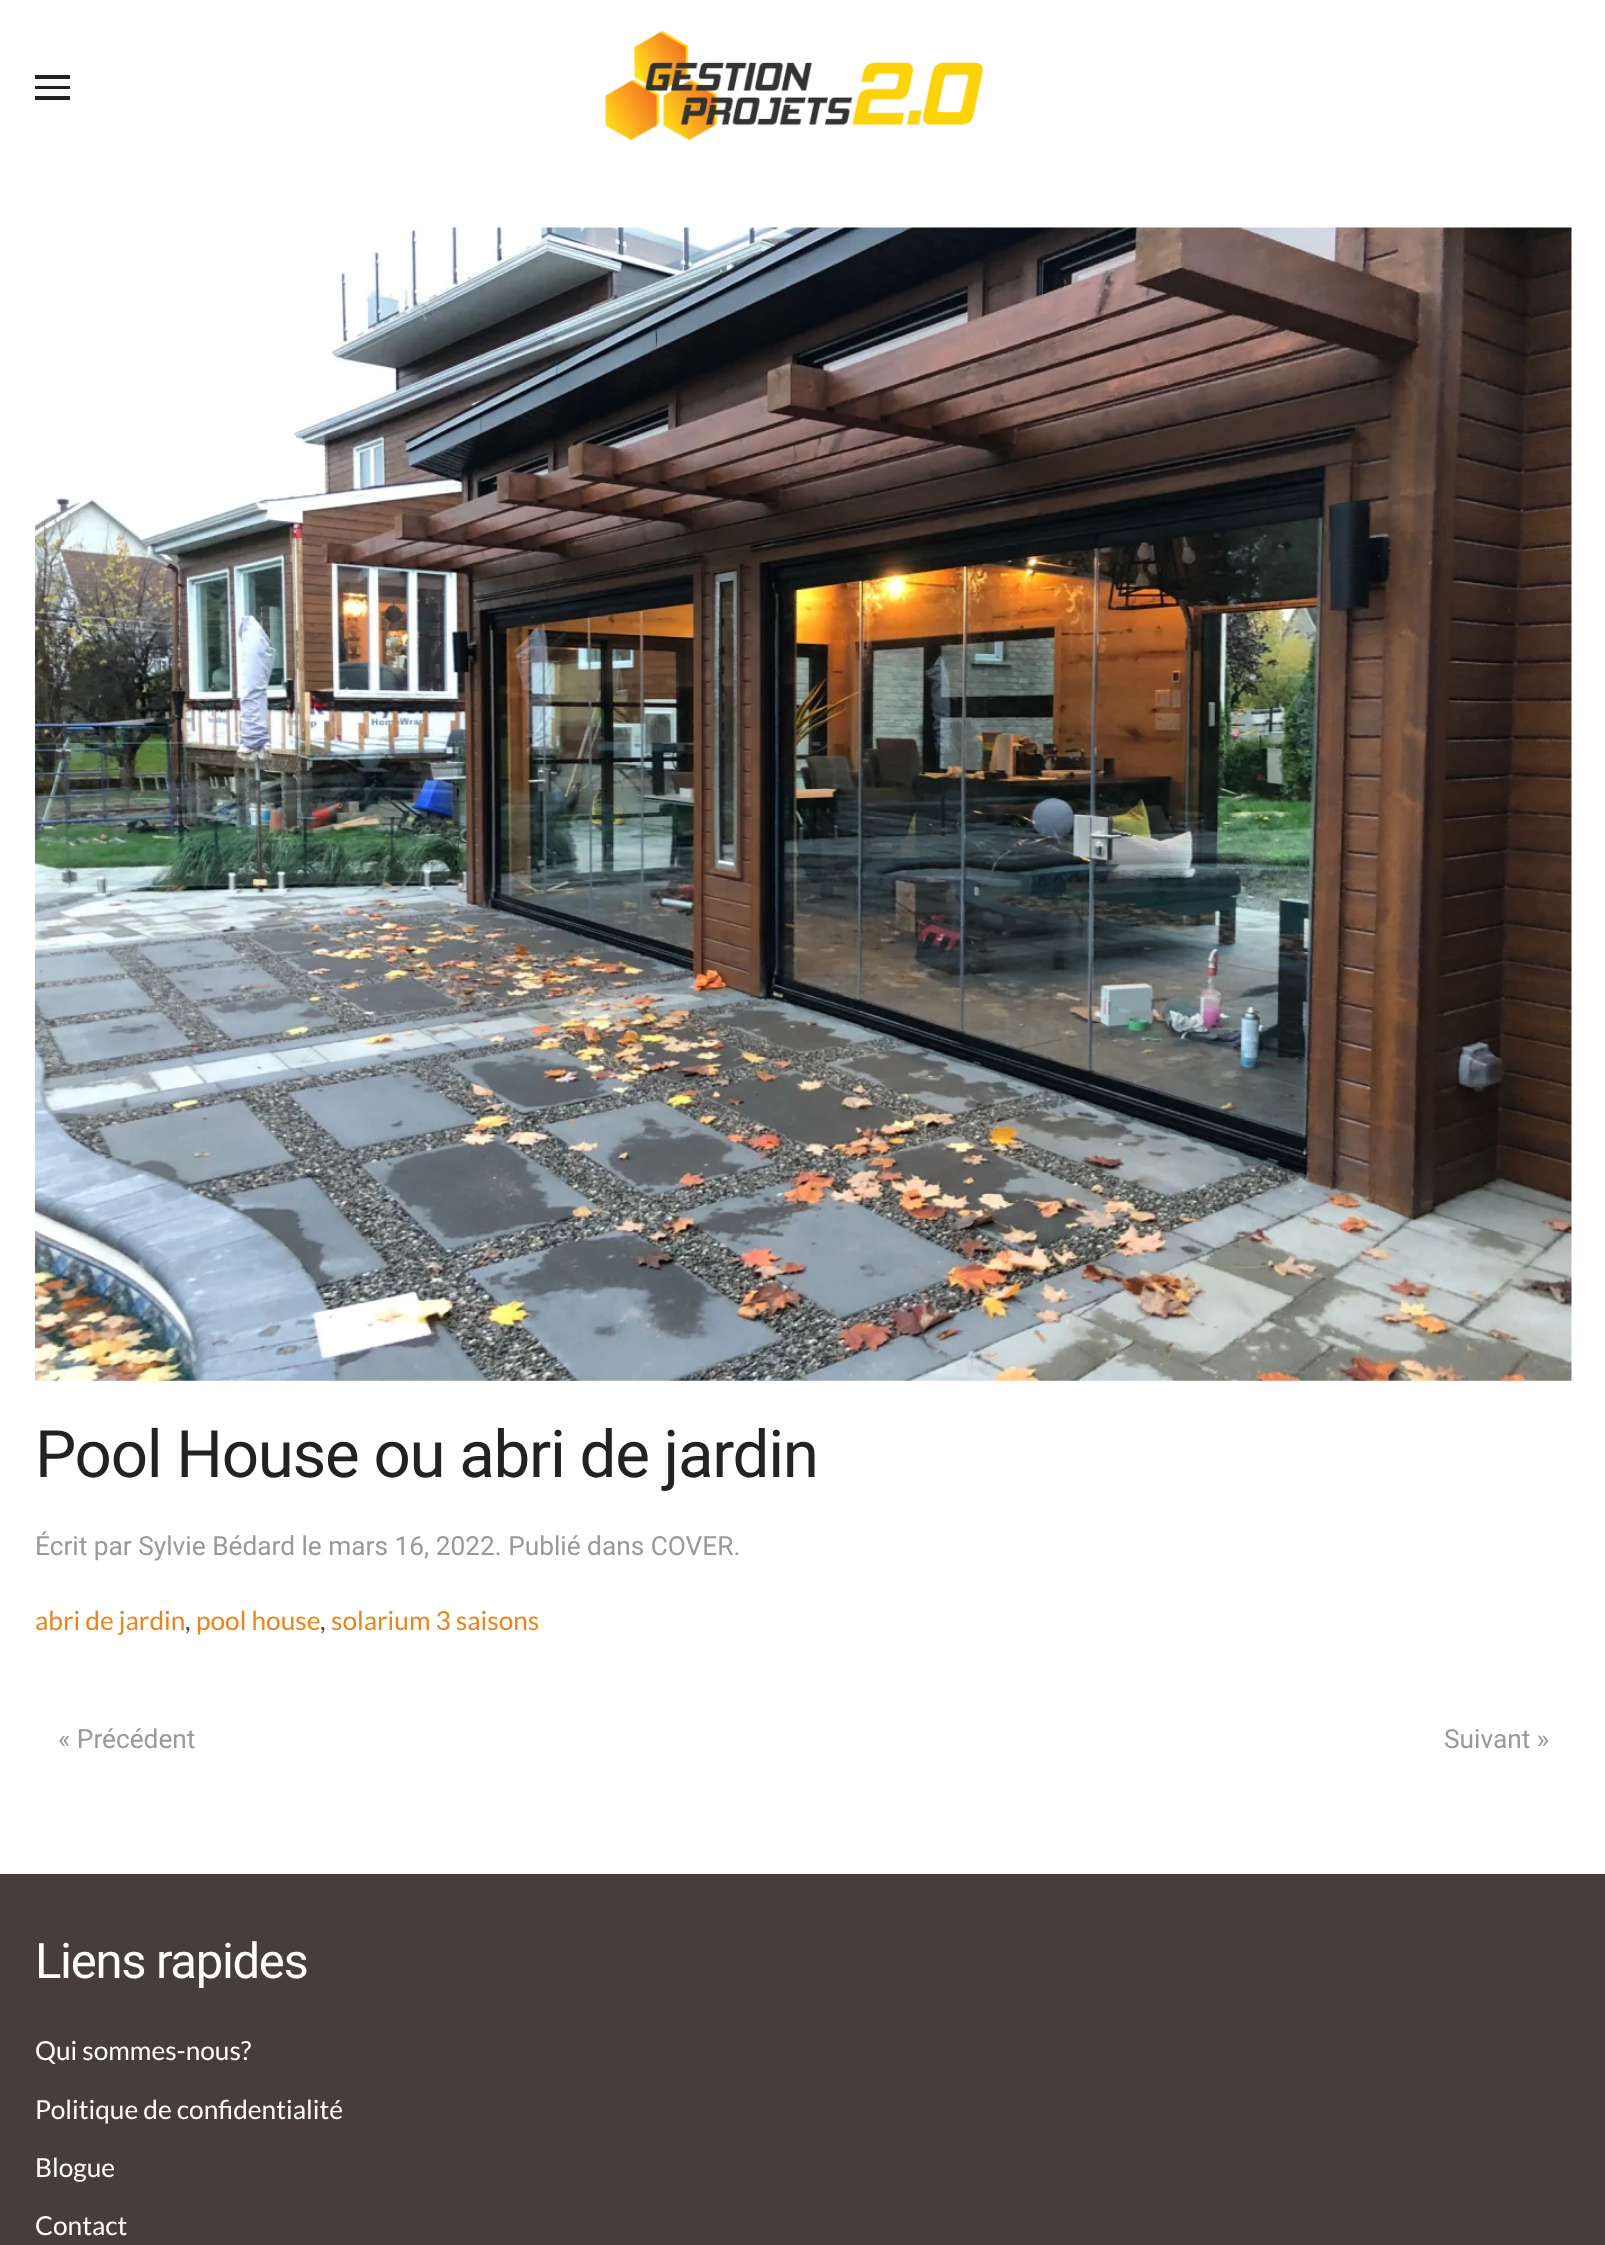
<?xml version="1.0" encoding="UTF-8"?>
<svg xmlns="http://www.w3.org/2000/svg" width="1605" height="2245">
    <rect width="100%" height="100%" fill="#FFFFFF"/>
    <rect x="35" y="75" width="35" height="4" fill="#222222"/>
    <rect x="35" y="86" width="35" height="3" fill="#222222"/>
    <rect x="35" y="96" width="35" height="4" fill="#222222"/>
    <image x="604" y="30" width="380" height="111" href="img_01.png"/>
    <image x="35" y="227" width="1537" height="1154" href="img_02.png"/>
    <text x="35" y="1477" font-family="Roboto" font-size="65.5" letter-spacing="-1.3" fill="#222222">Pool House ou abri de jardin</text>
    <text x="35" y="1555" font-family="Roboto" font-size="26.25" fill="#999999">Écrit par Sylvie Bédard le mars 16, 2022. Publié dans COVER.</text>
    <text x="35" y="1630" font-family="Lato" font-size="26.25" fill="#EC831D">abri de jardin</text>
    <text x="185" y="1630" font-family="Lato" font-size="26.25" fill="#444444">,</text>
    <text x="196" y="1630" font-family="Lato" font-size="26.25" fill="#EC831D">pool house</text>
    <text x="320" y="1630" font-family="Lato" font-size="26.25" fill="#444444">,</text>
    <text x="331" y="1630" font-family="Lato" font-size="26.25" fill="#EC831D">solarium 3 saisons</text>
    <text x="58" y="1748" font-family="Roboto" font-size="26.25" fill="#999999">« Précédent</text>
    <text x="1444" y="1748" font-family="Roboto" font-size="26.25" fill="#999999">Suivant »</text>
    <rect x="0" y="1874" width="1605" height="371" fill="#463E3C"/>
    <text x="35" y="1978" font-family="Roboto" font-size="49" letter-spacing="-1.3" fill="#FFFFFF">Liens rapides</text>
    <text x="35" y="2060" font-family="Lato" font-size="26.25" fill="#FFFFFF">Qui sommes-nous?</text>
    <text x="35" y="2119" font-family="Lato" font-size="26.25" fill="#FFFFFF">Politique de confidentialité</text>
    <text x="35" y="2177" font-family="Lato" font-size="26.25" fill="#FFFFFF">Blogue</text>
    <text x="35" y="2235" font-family="Lato" font-size="26.25" fill="#FFFFFF">Contact</text>
</svg>
